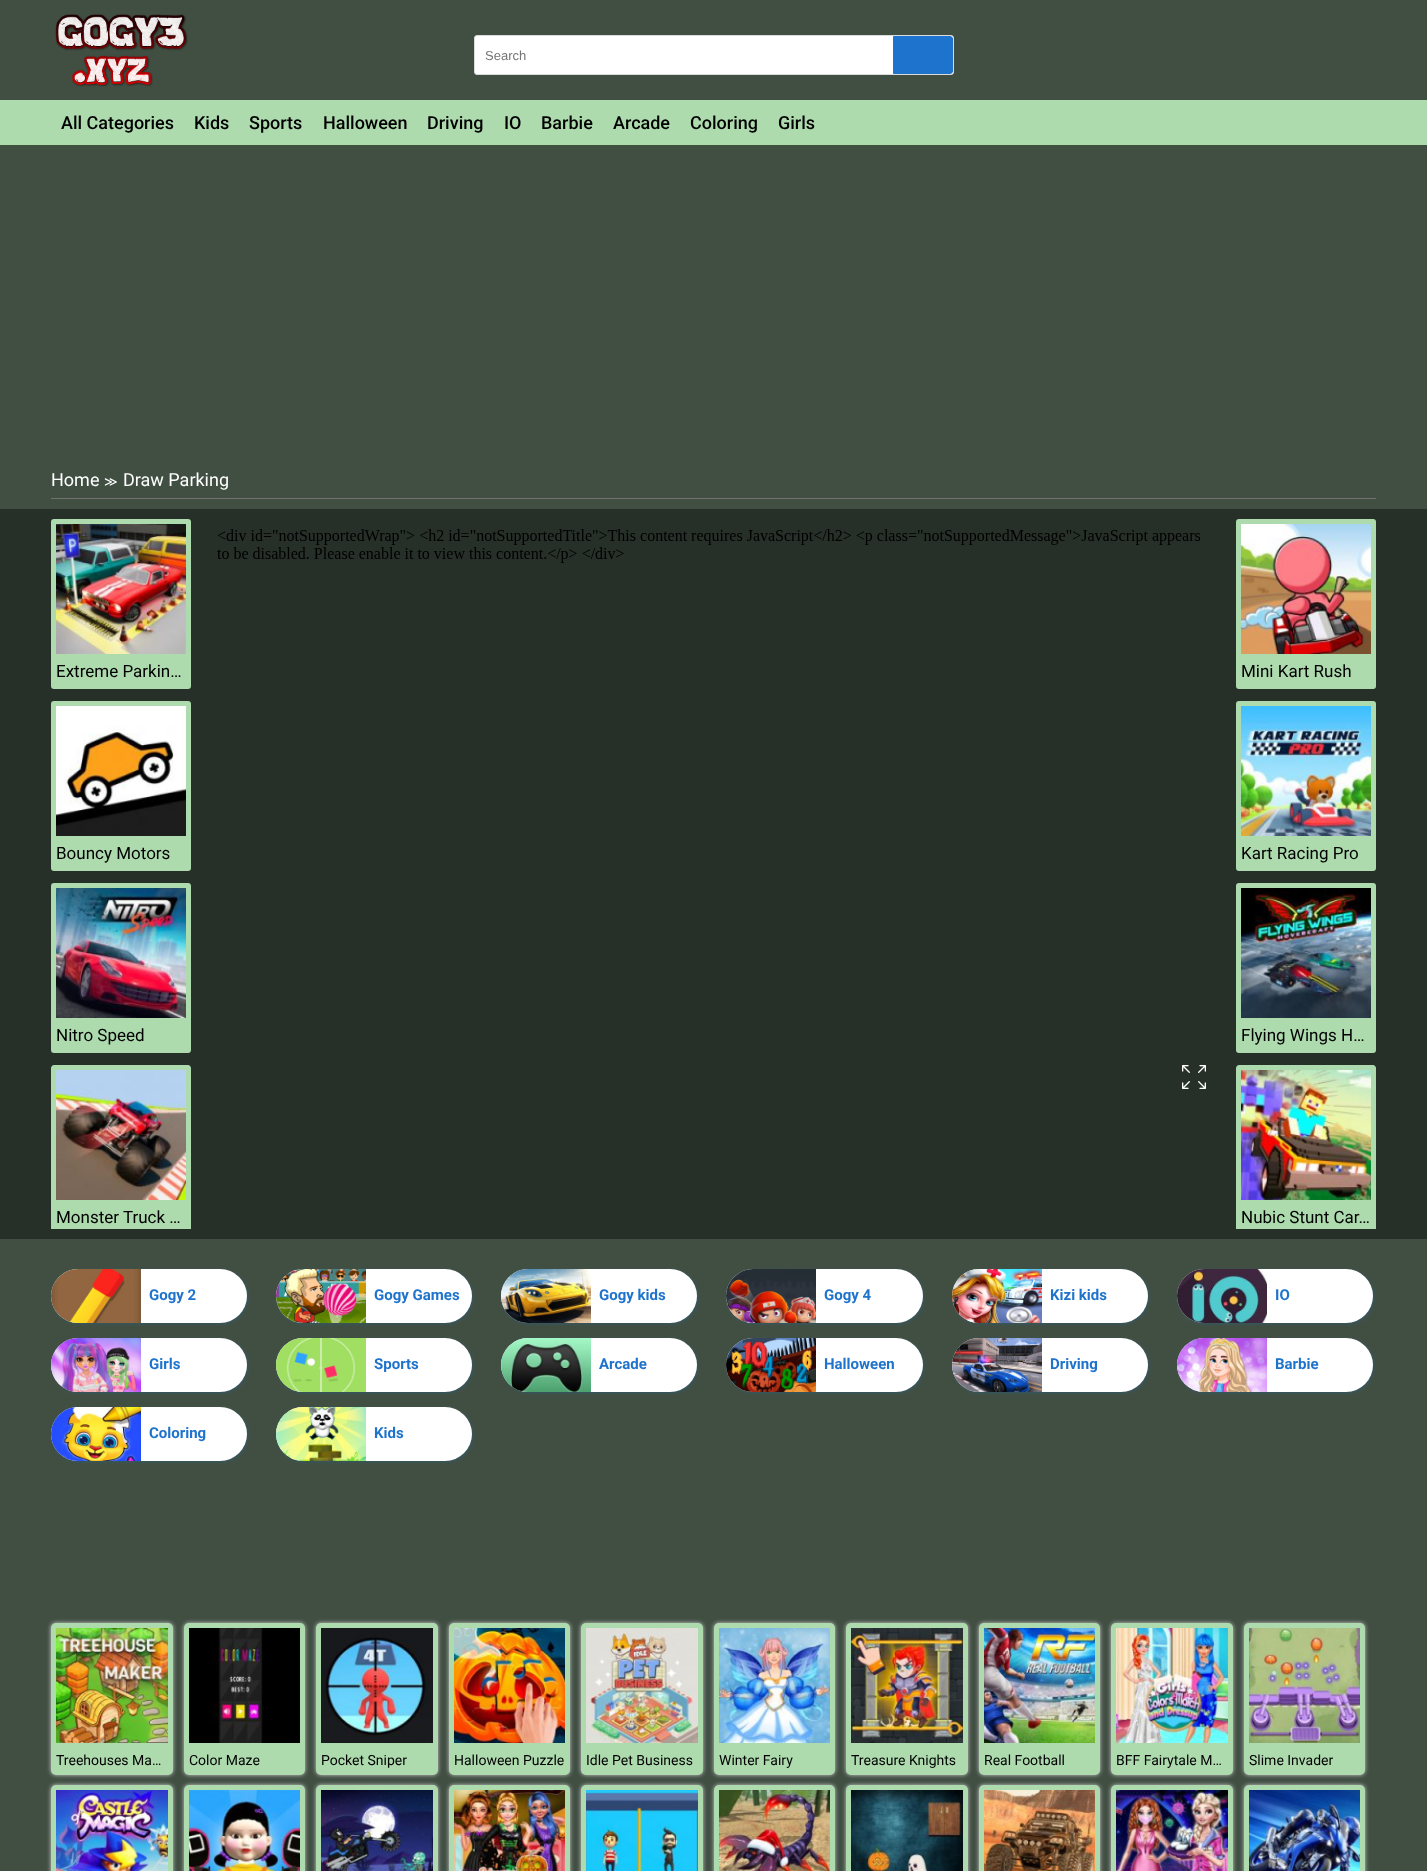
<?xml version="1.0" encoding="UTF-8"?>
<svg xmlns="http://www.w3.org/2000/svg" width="1427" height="1871">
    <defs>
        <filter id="blur1" x="-50%" y="-200%" width="200%" height="500%"><feGaussianBlur stdDeviation="2.5"/></filter>
        <filter id="blur2" x="-50%" y="-200%" width="200%" height="500%"><feGaussianBlur stdDeviation="2"/></filter>
    </defs>
    <rect width="100%" height="100%" fill="#414F43"/>
    <image x="55" y="14" width="133" height="73" href="img_01.png"/>
    <rect x="474.5" y="35.5" width="479" height="39" rx="2.5" fill="#FFFFFF" stroke="#DBDBDB"/>
    <text x="485" y="60" font-family="Liberation Sans" font-size="13" fill="#757575">Search</text>
    <path d="M 893.5 36.5 H 950 C 951.5 36.5 952.5 37.5 952.5 39 V 71 C 952.5 72.5 951.5 73.5 950 73.5 H 893.5 Z" fill="#1E73CC" stroke="#1E73CC"/>
    <rect x="0" y="100" width="1427" height="45" fill="#ADDBAE"/>
    <text x="61" y="129" font-family="Roboto" font-size="18" font-weight="500" fill="#000000">All Categories</text>
    <text x="194" y="129" font-family="Roboto" font-size="18" font-weight="500" fill="#000000">Kids</text>
    <text x="249" y="129" font-family="Roboto" font-size="18" font-weight="500" fill="#000000">Sports</text>
    <text x="323" y="129" font-family="Roboto" font-size="18" font-weight="500" fill="#000000">Halloween</text>
    <text x="427" y="129" font-family="Roboto" font-size="18" font-weight="500" fill="#000000">Driving</text>
    <text x="504" y="129" font-family="Roboto" font-size="18" font-weight="500" fill="#000000">IO</text>
    <text x="541" y="129" font-family="Roboto" font-size="18" font-weight="500" fill="#000000">Barbie</text>
    <text x="613" y="129" font-family="Roboto" font-size="18" font-weight="500" fill="#000000">Arcade</text>
    <text x="690" y="129" font-family="Roboto" font-size="18" font-weight="500" fill="#000000">Coloring</text>
    <text x="778" y="129" font-family="Roboto" font-size="18" font-weight="500" fill="#000000">Girls</text>
    <rect x="51" y="498" width="1325" height="1" fill="#727272"/>
    <text x="51" y="486" font-family="Roboto" font-size="18" fill="#FFFFFF">Home</text>
    <text x="104" y="486" font-family="DejaVu Sans" font-size="13" fill="#FFFFFF">≫</text>
    <text x="123" y="486" font-family="Roboto" font-size="18" fill="#FFFFFF">Draw Parking</text>
    <rect x="0" y="509" width="1427" height="730" fill="#272F29"/>
    <rect x="51" y="519" width="140" height="170" rx="3" fill="#ADDBAE"/>
    <image x="56" y="524" width="130" height="130" href="img_02.png"/>
    <text x="56" y="677" font-family="Roboto" font-size="17" fill="#000000">Extreme Parkin…</text>
    <rect x="51" y="701" width="140" height="170" rx="3" fill="#ADDBAE"/>
    <image x="56" y="706" width="130" height="130" href="img_03.png"/>
    <text x="56" y="859" font-family="Roboto" font-size="17" fill="#000000">Bouncy Motors</text>
    <rect x="51" y="883" width="140" height="170" rx="3" fill="#ADDBAE"/>
    <image x="56" y="888" width="130" height="130" href="img_04.png"/>
    <text x="56" y="1041" font-family="Roboto" font-size="17" fill="#000000">Nitro Speed</text>
    <path d="M 54 1065 H 188 C 189.5 1065 191 1066.5 191 1068 V 1229 H 51 V 1068 C 51 1066.5 52.5 1065 54 1065 Z" fill="#ADDBAE"/>
    <image x="56" y="1070" width="130" height="130" href="img_05.png"/>
    <text x="56" y="1223" font-family="Roboto" font-size="17" fill="#000000">Monster Truck …</text>
    <image x="217" y="529" width="984" height="34" href="img_06.png"/>
    <image x="1182" y="1065" width="24" height="24" href="img_07.png"/>
    <rect x="1236" y="519" width="140" height="170" rx="3" fill="#ADDBAE"/>
    <image x="1241" y="524" width="130" height="130" href="img_08.png"/>
    <text x="1241" y="677" font-family="Roboto" font-size="17" fill="#000000">Mini Kart Rush</text>
    <rect x="1236" y="701" width="140" height="170" rx="3" fill="#ADDBAE"/>
    <image x="1241" y="706" width="130" height="130" href="img_09.png"/>
    <text x="1241" y="859" font-family="Roboto" font-size="17" fill="#000000">Kart Racing Pro</text>
    <rect x="1236" y="883" width="140" height="170" rx="3" fill="#ADDBAE"/>
    <image x="1241" y="888" width="130" height="130" href="img_10.png"/>
    <text x="1241" y="1041" font-family="Roboto" font-size="17" fill="#000000">Flying Wings H…</text>
    <path d="M 1239 1065 H 1373 C 1374.5 1065 1376 1066.5 1376 1068 V 1229 H 1236 V 1068 C 1236 1066.5 1237.5 1065 1239 1065 Z" fill="#ADDBAE"/>
    <image x="1241" y="1070" width="130" height="130" href="img_11.png"/>
    <text x="1241" y="1223" font-family="Roboto" font-size="17" fill="#000000">Nubic Stunt Car…</text>
    <rect x="55" y="1273" width="190" height="48" rx="24" fill="#1E73CC" filter="url(#blur1)"/>
    <rect x="51" y="1269" width="196" height="54" rx="27" fill="#FFFFFF"/>
    <image x="51" y="1269" width="90" height="54" href="img_12.png"/>
    <text x="149" y="1300" font-family="Roboto" font-size="15" font-weight="700" fill="#1E73CC">Gogy 2</text>
    <rect x="280" y="1273" width="190" height="48" rx="24" fill="#1E73CC" filter="url(#blur1)"/>
    <rect x="276" y="1269" width="196" height="54" rx="27" fill="#FFFFFF"/>
    <image x="276" y="1269" width="90" height="54" href="img_13.png"/>
    <text x="374" y="1300" font-family="Roboto" font-size="15" font-weight="700" fill="#1E73CC">Gogy Games</text>
    <rect x="505" y="1273" width="190" height="48" rx="24" fill="#1E73CC" filter="url(#blur1)"/>
    <rect x="501" y="1269" width="196" height="54" rx="27" fill="#FFFFFF"/>
    <image x="501" y="1269" width="90" height="54" href="img_14.png"/>
    <text x="599" y="1300" font-family="Roboto" font-size="15" font-weight="700" fill="#1E73CC">Gogy kids</text>
    <rect x="730" y="1273" width="191" height="48" rx="24" fill="#1E73CC" filter="url(#blur1)"/>
    <rect x="726" y="1269" width="197" height="54" rx="27" fill="#FFFFFF"/>
    <image x="726" y="1269" width="90" height="54" href="img_15.png"/>
    <text x="824" y="1300" font-family="Roboto" font-size="15" font-weight="700" fill="#1E73CC">Gogy 4</text>
    <rect x="956" y="1273" width="190" height="48" rx="24" fill="#1E73CC" filter="url(#blur1)"/>
    <rect x="952" y="1269" width="196" height="54" rx="27" fill="#FFFFFF"/>
    <image x="952" y="1269" width="90" height="54" href="img_16.png"/>
    <text x="1050" y="1300" font-family="Roboto" font-size="15" font-weight="700" fill="#1E73CC">Kizi kids</text>
    <rect x="1181" y="1273" width="190" height="48" rx="24" fill="#1E73CC" filter="url(#blur1)"/>
    <rect x="1177" y="1269" width="196" height="54" rx="27" fill="#FFFFFF"/>
    <image x="1177" y="1269" width="90" height="54" href="img_17.png"/>
    <text x="1275" y="1300" font-family="Roboto" font-size="15" font-weight="700" fill="#1E73CC">IO</text>
    <rect x="55" y="1342" width="190" height="48" rx="24" fill="#1E73CC" filter="url(#blur1)"/>
    <rect x="51" y="1338" width="196" height="54" rx="27" fill="#FFFFFF"/>
    <image x="51" y="1338" width="90" height="54" href="img_18.png"/>
    <text x="149" y="1369" font-family="Roboto" font-size="15" font-weight="700" fill="#1E73CC">Girls</text>
    <rect x="280" y="1342" width="190" height="48" rx="24" fill="#1E73CC" filter="url(#blur1)"/>
    <rect x="276" y="1338" width="196" height="54" rx="27" fill="#FFFFFF"/>
    <image x="276" y="1338" width="90" height="54" href="img_19.png"/>
    <text x="374" y="1369" font-family="Roboto" font-size="15" font-weight="700" fill="#1E73CC">Sports</text>
    <rect x="505" y="1342" width="190" height="48" rx="24" fill="#1E73CC" filter="url(#blur1)"/>
    <rect x="501" y="1338" width="196" height="54" rx="27" fill="#FFFFFF"/>
    <image x="501" y="1338" width="90" height="54" href="img_20.png"/>
    <text x="599" y="1369" font-family="Roboto" font-size="15" font-weight="700" fill="#1E73CC">Arcade</text>
    <rect x="730" y="1342" width="191" height="48" rx="24" fill="#1E73CC" filter="url(#blur1)"/>
    <rect x="726" y="1338" width="197" height="54" rx="27" fill="#FFFFFF"/>
    <image x="726" y="1338" width="90" height="54" href="img_21.png"/>
    <text x="824" y="1369" font-family="Roboto" font-size="15" font-weight="700" fill="#1E73CC">Halloween</text>
    <rect x="956" y="1342" width="190" height="48" rx="24" fill="#1E73CC" filter="url(#blur1)"/>
    <rect x="952" y="1338" width="196" height="54" rx="27" fill="#FFFFFF"/>
    <image x="952" y="1338" width="90" height="54" href="img_22.png"/>
    <text x="1050" y="1369" font-family="Roboto" font-size="15" font-weight="700" fill="#1E73CC">Driving</text>
    <rect x="1181" y="1342" width="190" height="48" rx="24" fill="#1E73CC" filter="url(#blur1)"/>
    <rect x="1177" y="1338" width="196" height="54" rx="27" fill="#FFFFFF"/>
    <image x="1177" y="1338" width="90" height="54" href="img_23.png"/>
    <text x="1275" y="1369" font-family="Roboto" font-size="15" font-weight="700" fill="#1E73CC">Barbie</text>
    <rect x="55" y="1411" width="190" height="48" rx="24" fill="#1E73CC" filter="url(#blur1)"/>
    <rect x="51" y="1407" width="196" height="54" rx="27" fill="#FFFFFF"/>
    <image x="51" y="1407" width="90" height="54" href="img_24.png"/>
    <text x="149" y="1438" font-family="Roboto" font-size="15" font-weight="700" fill="#1E73CC">Coloring</text>
    <rect x="280" y="1411" width="190" height="48" rx="24" fill="#1E73CC" filter="url(#blur1)"/>
    <rect x="276" y="1407" width="196" height="54" rx="27" fill="#FFFFFF"/>
    <image x="276" y="1407" width="90" height="54" href="img_25.png"/>
    <text x="374" y="1438" font-family="Roboto" font-size="15" font-weight="700" fill="#1E73CC">Kids</text>
    <rect x="51" y="1623" width="122" height="152" rx="5" fill="#CCCCCC" filter="url(#blur2)"/>
    <rect x="51" y="1623" width="122" height="152" rx="5" fill="#ADDBAE"/>
    <image x="56" y="1628" width="112" height="115" href="img_26.png"/>
    <text x="56" y="1765" font-family="Roboto" font-size="14" fill="#000000">Treehouses Ma…</text>
    <rect x="184" y="1623" width="121" height="152" rx="5" fill="#CCCCCC" filter="url(#blur2)"/>
    <rect x="184" y="1623" width="121" height="152" rx="5" fill="#ADDBAE"/>
    <image x="189" y="1628" width="111" height="115" href="img_27.png"/>
    <text x="189" y="1765" font-family="Roboto" font-size="14" fill="#000000">Color Maze</text>
    <rect x="316" y="1623" width="122" height="152" rx="5" fill="#CCCCCC" filter="url(#blur2)"/>
    <rect x="316" y="1623" width="122" height="152" rx="5" fill="#ADDBAE"/>
    <image x="321" y="1628" width="112" height="115" href="img_28.png"/>
    <text x="321" y="1765" font-family="Roboto" font-size="14" fill="#000000">Pocket Sniper</text>
    <rect x="449" y="1623" width="121" height="152" rx="5" fill="#CCCCCC" filter="url(#blur2)"/>
    <rect x="449" y="1623" width="121" height="152" rx="5" fill="#ADDBAE"/>
    <image x="454" y="1628" width="111" height="115" href="img_29.png"/>
    <text x="454" y="1765" font-family="Roboto" font-size="14" fill="#000000">Halloween Puzzle</text>
    <rect x="581" y="1623" width="122" height="152" rx="5" fill="#CCCCCC" filter="url(#blur2)"/>
    <rect x="581" y="1623" width="122" height="152" rx="5" fill="#ADDBAE"/>
    <image x="586" y="1628" width="112" height="115" href="img_30.png"/>
    <text x="586" y="1765" font-family="Roboto" font-size="14" fill="#000000">Idle Pet Business</text>
    <rect x="714" y="1623" width="121" height="152" rx="5" fill="#CCCCCC" filter="url(#blur2)"/>
    <rect x="714" y="1623" width="121" height="152" rx="5" fill="#ADDBAE"/>
    <image x="719" y="1628" width="111" height="115" href="img_31.png"/>
    <text x="719" y="1765" font-family="Roboto" font-size="14" fill="#000000">Winter Fairy</text>
    <rect x="846" y="1623" width="122" height="152" rx="5" fill="#CCCCCC" filter="url(#blur2)"/>
    <rect x="846" y="1623" width="122" height="152" rx="5" fill="#ADDBAE"/>
    <image x="851" y="1628" width="112" height="115" href="img_32.png"/>
    <text x="851" y="1765" font-family="Roboto" font-size="14" fill="#000000">Treasure Knights</text>
    <rect x="979" y="1623" width="121" height="152" rx="5" fill="#CCCCCC" filter="url(#blur2)"/>
    <rect x="979" y="1623" width="121" height="152" rx="5" fill="#ADDBAE"/>
    <image x="984" y="1628" width="111" height="115" href="img_33.png"/>
    <text x="984" y="1765" font-family="Roboto" font-size="14" fill="#000000">Real Football</text>
    <rect x="1111" y="1623" width="122" height="152" rx="5" fill="#CCCCCC" filter="url(#blur2)"/>
    <rect x="1111" y="1623" width="122" height="152" rx="5" fill="#ADDBAE"/>
    <image x="1116" y="1628" width="112" height="115" href="img_34.png"/>
    <text x="1116" y="1765" font-family="Roboto" font-size="14" fill="#000000">BFF Fairytale M…</text>
    <rect x="1244" y="1623" width="121" height="152" rx="5" fill="#CCCCCC" filter="url(#blur2)"/>
    <rect x="1244" y="1623" width="121" height="152" rx="5" fill="#ADDBAE"/>
    <image x="1249" y="1628" width="111" height="115" href="img_35.png"/>
    <text x="1249" y="1765" font-family="Roboto" font-size="14" fill="#000000">Slime Invader</text>
    <rect x="51" y="1785" width="122" height="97" rx="5" fill="#CCCCCC" filter="url(#blur2)"/>
    <rect x="51" y="1785" width="122" height="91" rx="5" fill="#ADDBAE"/>
    <image x="56" y="1790" width="112" height="81" href="img_36.png"/>
    <rect x="184" y="1785" width="121" height="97" rx="5" fill="#CCCCCC" filter="url(#blur2)"/>
    <rect x="184" y="1785" width="121" height="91" rx="5" fill="#ADDBAE"/>
    <image x="189" y="1790" width="111" height="81" href="img_37.png"/>
    <rect x="316" y="1785" width="122" height="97" rx="5" fill="#CCCCCC" filter="url(#blur2)"/>
    <rect x="316" y="1785" width="122" height="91" rx="5" fill="#ADDBAE"/>
    <image x="321" y="1790" width="112" height="81" href="img_38.png"/>
    <rect x="449" y="1785" width="121" height="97" rx="5" fill="#CCCCCC" filter="url(#blur2)"/>
    <rect x="449" y="1785" width="121" height="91" rx="5" fill="#ADDBAE"/>
    <image x="454" y="1790" width="111" height="81" href="img_39.png"/>
    <rect x="581" y="1785" width="122" height="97" rx="5" fill="#CCCCCC" filter="url(#blur2)"/>
    <rect x="581" y="1785" width="122" height="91" rx="5" fill="#ADDBAE"/>
    <image x="586" y="1790" width="112" height="81" href="img_40.png"/>
    <rect x="714" y="1785" width="121" height="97" rx="5" fill="#CCCCCC" filter="url(#blur2)"/>
    <rect x="714" y="1785" width="121" height="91" rx="5" fill="#ADDBAE"/>
    <image x="719" y="1790" width="111" height="81" href="img_41.png"/>
    <rect x="846" y="1785" width="122" height="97" rx="5" fill="#CCCCCC" filter="url(#blur2)"/>
    <rect x="846" y="1785" width="122" height="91" rx="5" fill="#ADDBAE"/>
    <image x="851" y="1790" width="112" height="81" href="img_42.png"/>
    <rect x="979" y="1785" width="121" height="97" rx="5" fill="#CCCCCC" filter="url(#blur2)"/>
    <rect x="979" y="1785" width="121" height="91" rx="5" fill="#ADDBAE"/>
    <image x="984" y="1790" width="111" height="81" href="img_43.png"/>
    <rect x="1111" y="1785" width="122" height="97" rx="5" fill="#CCCCCC" filter="url(#blur2)"/>
    <rect x="1111" y="1785" width="122" height="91" rx="5" fill="#ADDBAE"/>
    <image x="1116" y="1790" width="112" height="81" href="img_44.png"/>
    <rect x="1244" y="1785" width="121" height="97" rx="5" fill="#CCCCCC" filter="url(#blur2)"/>
    <rect x="1244" y="1785" width="121" height="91" rx="5" fill="#ADDBAE"/>
    <image x="1249" y="1790" width="111" height="81" href="img_45.png"/>
</svg>
